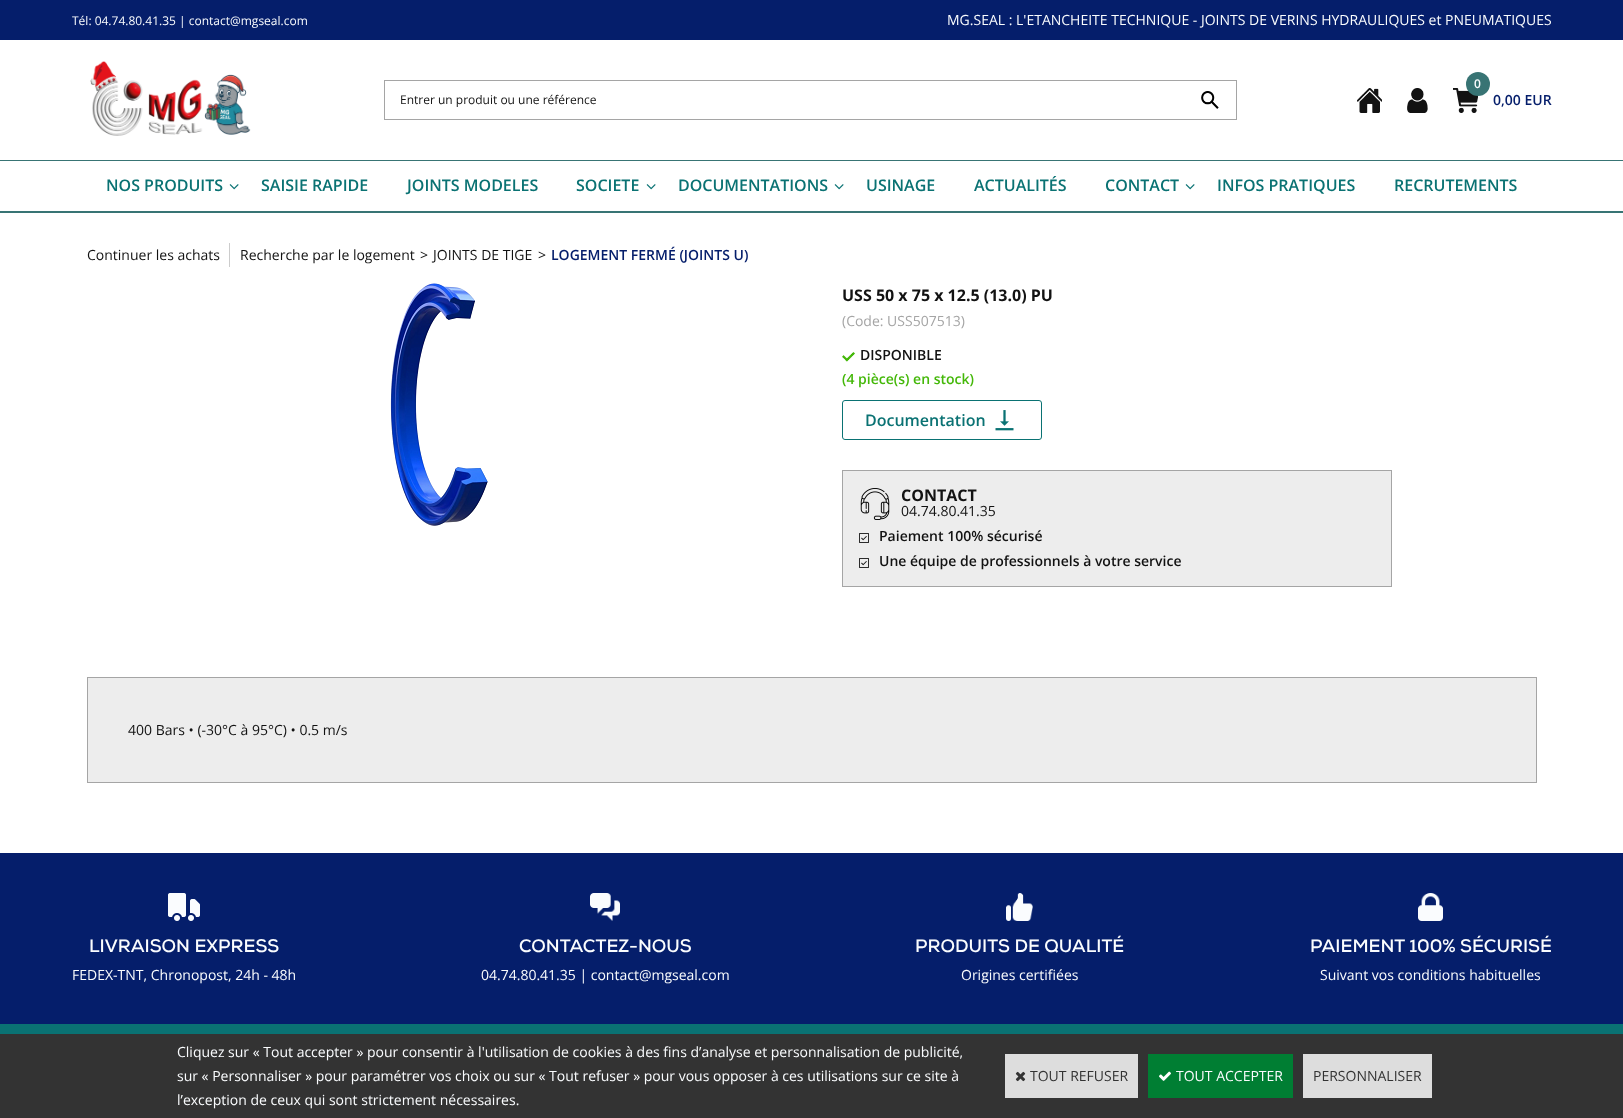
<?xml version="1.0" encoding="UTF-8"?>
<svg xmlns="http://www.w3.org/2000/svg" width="1623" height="1118">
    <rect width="100%" height="100%" fill="#FFFFFF"/>
    <rect x="0" y="0" width="1623" height="40" fill="#051E6B"/>
    <text x="72" y="25" font-family="Open Sans" font-size="12" fill="#FAFCFE">Tél: 04.74.80.41.35 | contact@mgseal.com</text>
    <text x="947" y="25" font-family="Open Sans" font-size="14" fill="#FAFCFE">MG.SEAL : L'ETANCHEITE TECHNIQUE - JOINTS DE VERINS HYDRAULIQUES et PNEUMATIQUES</text>
    <image x="90" y="61" width="161" height="75" href="img_01.png"/>
    <rect x="384" y="80" width="853" height="1" fill="#A5A5A5"/>
    <rect x="384" y="119" width="800" height="1" fill="#A5A5A5"/>
    <rect x="384" y="80" width="1" height="40" fill="#A5A5A5"/>
    <text x="400" y="104" font-family="Open Sans" font-size="12" fill="#121212">Entrer un produit ou une référence</text>
    <image x="1201" y="91" width="18" height="18" href="img_02.png"/>
    <rect x="1236" y="80" width="1" height="40" fill="#A5A5A5"/>
    <rect x="1184" y="119" width="53" height="1" fill="#A5A5A5"/>
    <image x="1357" y="88" width="25" height="25" href="img_03.png"/>
    <image x="1407" y="88" width="21" height="25" href="img_04.png"/>
    <image x="1453" y="88" width="25" height="25" href="img_05.png"/>
    <circle cx="1478" cy="84" r="12" fill="#387474"/>
    <text x="1474" y="88" font-family="Open Sans" font-size="12" font-weight="600" fill="#FAFCFE">0</text>
    <text x="1493" y="105" font-family="Open Sans" font-size="14" font-weight="600" fill="#051E6B">0,00 EUR</text>
    <rect x="0" y="160" width="1623" height="1" fill="#387474"/>
    <rect x="0" y="211" width="1623" height="2" fill="#387474"/>
    <text x="106" y="191" font-family="Open Sans" font-size="16" font-weight="600" fill="#0A7273">NOS PRODUITS</text>
    <image x="229" y="184" width="10" height="6" href="img_06.png"/>
    <text x="261" y="191" font-family="Open Sans" font-size="16" font-weight="600" fill="#0A7273">SAISIE RAPIDE</text>
    <text x="407" y="191" font-family="Open Sans" font-size="16" font-weight="600" fill="#0A7273">JOINTS MODELES</text>
    <text x="576" y="191" font-family="Open Sans" font-size="16" font-weight="600" fill="#0A7273">SOCIETE</text>
    <image x="646" y="184" width="10" height="6" href="img_06.png"/>
    <text x="678" y="191" font-family="Open Sans" font-size="16" font-weight="600" fill="#0A7273">DOCUMENTATIONS</text>
    <image x="834" y="184" width="10" height="6" href="img_06.png"/>
    <text x="866" y="191" font-family="Open Sans" font-size="16" font-weight="600" fill="#0A7273">USINAGE</text>
    <text x="974" y="191" font-family="Open Sans" font-size="16" font-weight="600" fill="#0A7273">ACTUALITÉS</text>
    <text x="1105" y="191" font-family="Open Sans" font-size="16" font-weight="600" fill="#0A7273">CONTACT</text>
    <image x="1185" y="184" width="10" height="6" href="img_06.png"/>
    <text x="1217" y="191" font-family="Open Sans" font-size="16" font-weight="600" fill="#0A7273">INFOS PRATIQUES</text>
    <text x="1394" y="191" font-family="Open Sans" font-size="16" font-weight="600" fill="#0A7273">RECRUTEMENTS</text>
    <text x="87" y="260" font-family="Open Sans" font-size="14" fill="#121212">Continuer les achats</text>
    <rect x="229" y="243" width="1" height="24" fill="#CCCCCC"/>
    <text x="240" y="260" font-family="Open Sans" font-size="14" fill="#121212">Recherche par le logement</text>
    <text x="420" y="260" font-family="Open Sans" font-size="14" fill="#121212">&gt;</text>
    <text x="433" y="260" font-family="Open Sans" font-size="14" fill="#121212">JOINTS DE TIGE</text>
    <text x="538" y="260" font-family="Open Sans" font-size="14" fill="#121212">&gt;</text>
    <text x="551" y="260" font-family="Open Sans" font-size="14" font-weight="600" fill="#051E6B">LOGEMENT FERMÉ (JOINTS U)</text>
    <image x="390" y="283" width="98" height="243" href="img_07.png"/>
    <text x="842" y="301" font-family="Open Sans" font-size="16" font-weight="700" fill="#121212">USS 50 x 75 x 12.5 (13.0) PU</text>
    <text x="842" y="326" font-family="Open Sans" font-size="14" fill="#A5A5A5">(Code: USS507513)</text>
    <image x="842" y="352" width="13" height="10" href="img_08.png"/>
    <text x="860" y="360" font-family="Open Sans" font-size="14" font-weight="600" fill="#121212">DISPONIBLE</text>
    <text x="842" y="384" font-family="Open Sans" font-size="14" font-weight="600" fill="#44B809">(4 pièce(s) en stock)</text>
    <rect x="842.5" y="400.5" width="199" height="39" rx="2.5" fill="none" stroke="#0A7273"/>
    <text x="865" y="426" font-family="Open Sans" font-size="16" font-weight="600" fill="#0A7273">Documentation</text>
    <image x="995" y="410" width="19" height="21" href="img_09.png"/>
    <rect x="842.5" y="470.5" width="549" height="116" fill="#EDEDED" stroke="#A5A5A5"/>
    <image x="860" y="488" width="30" height="32" href="img_10.png"/>
    <text x="901" y="501" font-family="Open Sans" font-size="16" font-weight="700" fill="#121212">CONTACT</text>
    <text x="901" y="516" font-family="Open Sans" font-size="14" fill="#121212">04.74.80.41.35</text>
    <image x="859" y="533" width="10" height="10" href="img_11.png"/>
    <text x="879" y="541" font-family="Open Sans" font-size="14" font-weight="600" fill="#121212">Paiement 100% sécurisé</text>
    <image x="859" y="558" width="10" height="10" href="img_11.png"/>
    <text x="879" y="566" font-family="Open Sans" font-size="14" font-weight="600" fill="#121212">Une équipe de professionnels à votre service</text>
    <rect x="87.5" y="677.5" width="1449" height="105" fill="#EDEDED" stroke="#A5A5A5"/>
    <text x="128" y="735" font-family="Open Sans" font-size="14" fill="#121212">400 Bars • (-30°C à 95°C) • 0.5 m/s</text>
    <rect x="0" y="853" width="1623" height="171" fill="#051E6B"/>
    <image x="168" y="893" width="32" height="28" href="img_12.png"/>
    <text x="89" y="952" font-family="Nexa" font-size="18" font-weight="700" fill="#FAFCFE">LIVRAISON EXPRESS</text>
    <text x="72" y="980" font-family="Open Sans" font-size="14" fill="#FAFCFE">FEDEX-TNT, Chronopost, 24h - 48h</text>
    <image x="590" y="893" width="30" height="28" href="img_13.png"/>
    <text x="519" y="952" font-family="Nexa" font-size="18" font-weight="700" fill="#FAFCFE">CONTACTEZ-NOUS</text>
    <text x="481" y="980" font-family="Open Sans" font-size="14" fill="#FAFCFE">04.74.80.41.35 | contact@mgseal.com</text>
    <image x="1006" y="893" width="27" height="28" href="img_14.png"/>
    <text x="915" y="952" font-family="Nexa" font-size="18" font-weight="700" fill="#FAFCFE">PRODUITS DE QUALITÉ</text>
    <text x="961" y="980" font-family="Open Sans" font-size="14" fill="#FAFCFE">Origines certifiées</text>
    <image x="1418" y="893" width="25" height="28" href="img_15.png"/>
    <text x="1310" y="952" font-family="Nexa" font-size="18" font-weight="700" fill="#FAFCFE">PAIEMENT 100% SÉCURISÉ</text>
    <text x="1320" y="980" font-family="Open Sans" font-size="14" fill="#FAFCFE">Suivant vos conditions habituelles</text>
    <rect x="0" y="1024" width="1623" height="10" fill="#0A7273"/>
    <rect x="0" y="1034" width="1623" height="84" fill="#333333"/>
    <text font-family="Open Sans" font-size="14" fill="#FAFCFE">
        <tspan x="177" y="1057">Cliquez sur « Tout accepter » pour consentir à l'utilisation de cookies à des fins d’analyse et personnalisation de publicité,</tspan>
        <tspan x="177" y="1081">sur « Personnaliser » pour paramétrer vos choix ou sur « Tout refuser » pour vous opposer à ces utilisations sur ce site à</tspan>
        <tspan x="177" y="1105">l’exception de ceux qui sont strictement nécessaires.</tspan>
    </text>
    <rect x="1005" y="1054" width="133" height="44" fill="#DDDDDD"/>
    <image x="1015" y="1071" width="11" height="11" href="img_16.png"/>
    <text x="1030" y="1081" font-family="Open Sans" font-size="14" fill="#333333">TOUT REFUSER</text>
    <rect x="1148" y="1054" width="145" height="44" fill="#007E33"/>
    <image x="1159" y="1071" width="12" height="10" href="img_17.png"/>
    <text x="1176" y="1081" font-family="Open Sans" font-size="14" fill="#FAFCFE">TOUT ACCEPTER</text>
    <rect x="1303" y="1054" width="129" height="44" fill="#DDDDDD"/>
    <text x="1313" y="1081" font-family="Open Sans" font-size="14" fill="#333333">PERSONNALISER</text>
</svg>
